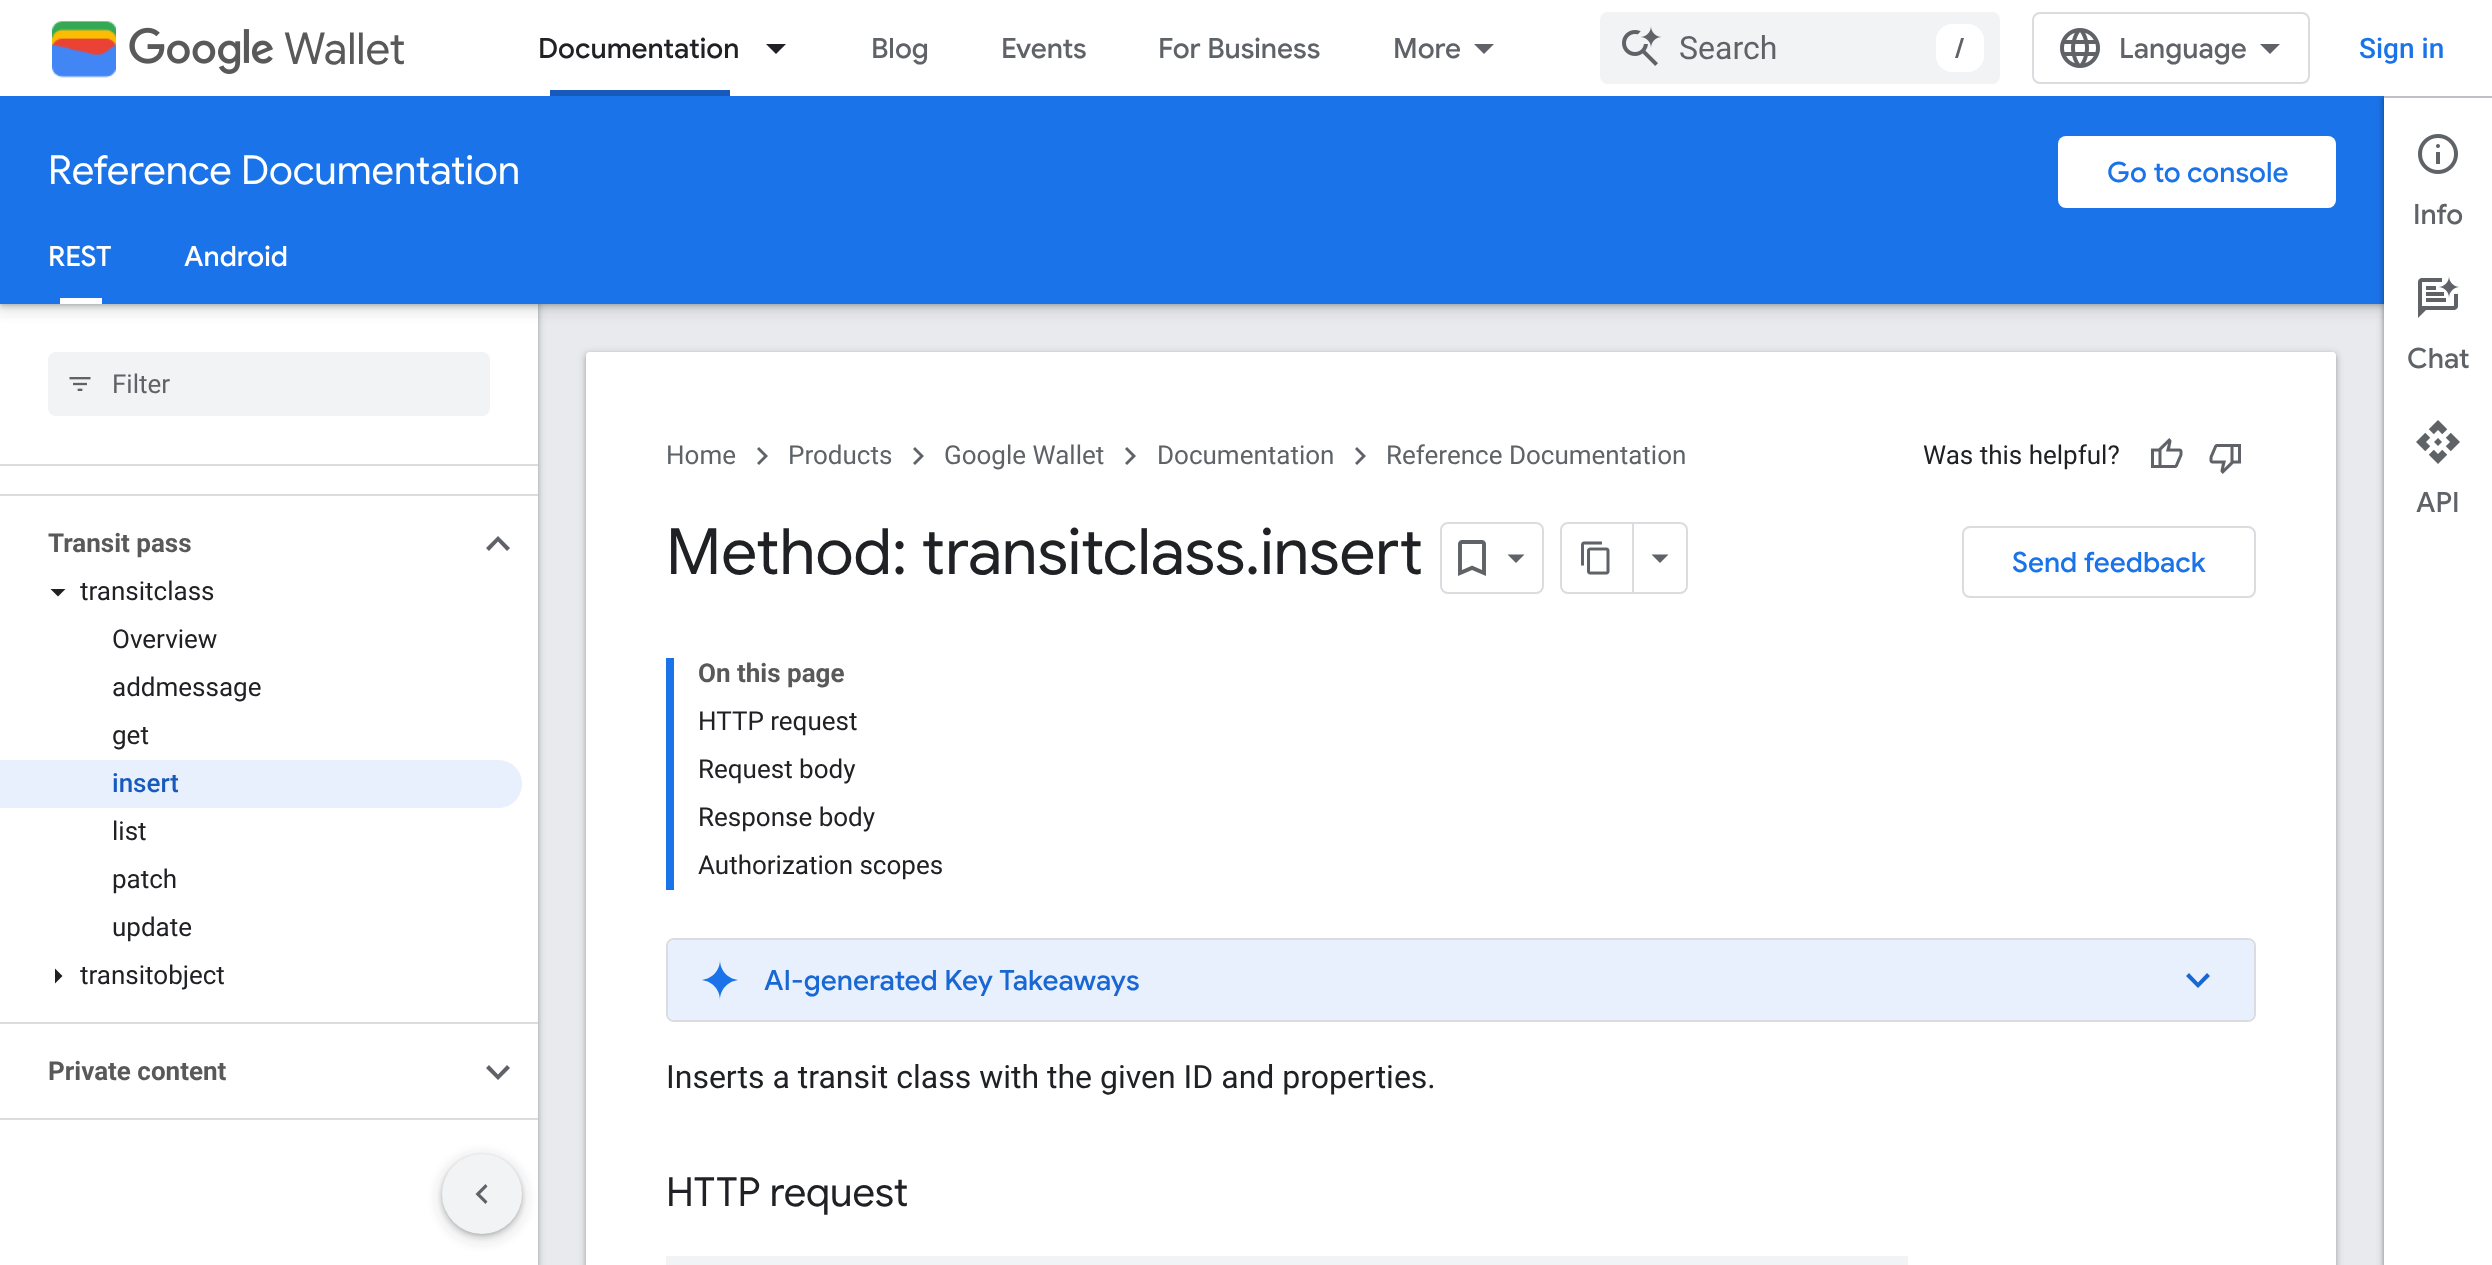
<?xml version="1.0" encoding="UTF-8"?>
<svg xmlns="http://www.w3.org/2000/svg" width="2492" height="1265">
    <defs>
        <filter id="blur1" x="-50%" y="-200%" width="200%" height="500%"><feGaussianBlur stdDeviation="3"/></filter>
        <filter id="blur2" x="-50%" y="-200%" width="200%" height="500%"><feGaussianBlur stdDeviation="2"/></filter>
        <filter id="blur3" x="-50%" y="-200%" width="200%" height="500%"><feGaussianBlur stdDeviation="6"/></filter>
        <clipPath id="clip1"><rect x="112" y="616" width="66" height="336"/></clipPath>
    </defs>
    <rect width="100%" height="100%" fill="#E8EAED"/>
    <rect x="-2" y="0" width="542" height="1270" fill="#3C4043" fill-opacity="0.15" filter="url(#blur1)"/>
    <rect x="0" y="2" width="538" height="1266" fill="#3C4043" fill-opacity="0.3" filter="url(#blur2)"/>
    <rect x="0" y="466" width="538" height="799" fill="#FFFFFF"/>
    <rect x="0" y="304" width="538" height="160" fill="#FFFFFF"/>
    <rect x="-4" y="96" width="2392" height="216" fill="#3C4043" fill-opacity="0.15" filter="url(#blur3)"/>
    <rect x="0" y="98" width="2384" height="208" fill="#3C4043" fill-opacity="0.3" filter="url(#blur2)"/>
    <rect x="0" y="96" width="2384" height="208" fill="#1A73E8"/>
    <rect x="2382" y="96" width="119" height="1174" fill="#000000" fill-opacity="0.15" filter="url(#blur1)"/>
    <rect x="2384" y="98" width="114" height="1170" fill="#000000" fill-opacity="0.3" filter="url(#blur2)"/>
    <rect x="0" y="0" width="2492" height="96" fill="#FFFFFF"/>
    <image x="52" y="21" width="64" height="57" href="img_01.png"/>
    <image x="129" y="27" width="144" height="47" href="img_02.png"/>
    <text x="284" y="64" font-family="Google Sans" font-size="44" fill="#595959">Wallet</text>
    <text x="538" y="58" font-family="Google Sans" font-size="28" font-weight="500" fill="#202124">Documentation</text>
    <rect x="550" y="90" width="180" height="6" fill="#185ABC"/>
    <path d="M 766 44 H 786 L 776 54 Z" fill="#202124"/>
    <text x="871" y="58" font-family="Google Sans" font-size="28" font-weight="500" fill="#5F6368">Blog</text>
    <text x="1001" y="58" font-family="Google Sans" font-size="28" font-weight="500" fill="#5F6368">Events</text>
    <text x="1158" y="58" font-family="Google Sans" font-size="28" font-weight="500" fill="#5F6368">For Business</text>
    <text x="1393" y="58" font-family="Google Sans" font-size="28" font-weight="500" fill="#5F6368">More</text>
    <path d="M 1474 44 H 1494 L 1484 54 Z" fill="#5F6368"/>
    <rect x="1600" y="12" width="400" height="72" rx="8" fill="#F1F3F4"/>
    <image x="1622" y="26" width="40" height="40" href="img_03.png"/>
    <text x="1679" y="59" font-family="Roboto" font-size="32" fill="#5F6368">Search</text>
    <rect x="1936" y="24" width="48" height="48" rx="16" fill="#FFFFFF"/>
    <text x="1955" y="58" font-family="Google Sans" font-size="28" font-weight="500" fill="#5F6368">/</text>
    <rect x="2033" y="13" width="276" height="70" rx="7" fill="none" stroke="#DADCE0" stroke-width="2"/>
    <image x="2060" y="28" width="40" height="40" href="img_04.png"/>
    <text x="2119" y="58" font-family="Google Sans" font-size="28" font-weight="500" fill="#5F6368">Language</text>
    <path d="M 2270 54 L 2260 44 H 2280 Z" fill="#5F6368"/>
    <text x="2359" y="58" font-family="Roboto" font-size="28" font-weight="500" fill="#1A73E8">Sign in</text>
    <text x="48" y="184" font-family="Google Sans" font-size="40" fill="#FFFFFF">Reference Documentation</text>
    <rect x="2058" y="136" width="278" height="72" rx="8" fill="#FFFFFF"/>
    <text x="2107" y="182" font-family="Google Sans" font-size="28" font-weight="500" fill="#1A73E8">Go to console</text>
    <text x="48" y="266" font-family="Google Sans" font-size="28" font-weight="500" fill="#FFFFFF">REST</text>
    <rect x="60" y="298" width="42" height="6" fill="#FFFFFF"/>
    <text x="184" y="266" font-family="Google Sans" font-size="28" font-weight="500" fill="#FFFFFF">Android</text>
    <rect x="0" y="464" width="538" height="2" fill="#DADCE0"/>
    <rect x="48" y="352" width="442" height="64" rx="8" fill="#F1F3F4"/>
    <image x="69" y="377" width="22" height="14" href="img_05.png"/>
    <text x="112" y="393" font-family="Roboto" font-size="26" fill="#5F6368">Filter</text>
    <rect x="0" y="494" width="538" height="2" fill="#DADCE0"/>
    <rect x="0" y="1022" width="538" height="2" fill="#DADCE0"/>
    <text x="48" y="552" font-family="Roboto" font-size="26" font-weight="700" fill="#595959">Transit pass</text>
    <path d="M 498 536 L 510 548 L 507 551 L 498 541.5 L 489 551 L 486 548 Z" fill="#5F6368"/>
    <path d="M 50.5 589 H 65.5 L 58 596.5 Z" fill="#202124"/>
    <text x="80" y="600" font-family="Roboto" font-size="26" fill="#202124">transitclass</text>
    <text font-family="Roboto" font-size="26" fill="#202124">
        <tspan x="112" y="648">Overview</tspan>
        <tspan x="112" y="696">addmessage</tspan>
        <tspan x="112" y="744">get</tspan>
    </text>
    <path d="M 0 760 H 498 C 511.5 760 522 770.5 522 784 C 522 797.5 511.5 808 498 808 H 0 Z" fill="#E8F0FE"/>
    <g clip-path="url(#clip1)">
        <text x="112" y="792" font-family="Roboto" font-size="26" font-weight="500" fill="#185ABC">insert</text>
    </g>
    <text font-family="Roboto" font-size="26" fill="#202124">
        <tspan x="112" y="840">list</tspan>
        <tspan x="112" y="888">patch</tspan>
        <tspan x="112" y="936">update</tspan>
    </text>
    <path d="M 55 983.5 V 968.5 L 62.5 976 Z" fill="#202124"/>
    <text x="80" y="984" font-family="Roboto" font-size="26" fill="#202124">transitobject</text>
    <rect x="0" y="1118" width="538" height="2" fill="#DADCE0"/>
    <text x="48" y="1080" font-family="Roboto" font-size="26" font-weight="700" fill="#595959">Private content</text>
    <path d="M 498 1080 L 510 1068 L 507 1065 L 498 1074.5 L 489 1065 L 486 1068 Z" fill="#5F6368"/>
    <rect x="2384" y="98" width="108" height="1167" fill="#FFFFFF"/>
    <rect x="2384" y="96" width="108" height="2" fill="#BDC1C6"/>
    <image x="2418" y="134" width="40" height="40" href="img_06.png"/>
    <text x="2413" y="224" font-family="Google Sans" font-size="28" font-weight="500" fill="#5F6368">Info</text>
    <image x="2418" y="276" width="42" height="42" href="img_07.png"/>
    <text x="2407" y="368" font-family="Google Sans" font-size="28" font-weight="500" fill="#5F6368">Chat</text>
    <image x="2416" y="420" width="44" height="44" href="img_08.png"/>
    <text x="2416" y="512" font-family="Google Sans" font-size="28" font-weight="500" fill="#5F6368">API</text>
    <rect x="584" y="352" width="1754" height="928" rx="6" fill="#3C4043" fill-opacity="0.15" filter="url(#blur1)"/>
    <rect x="586" y="354" width="1750" height="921" rx="4" fill="#3C4043" fill-opacity="0.3" filter="url(#blur2)"/>
    <rect x="586" y="352" width="1750" height="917" rx="4" fill="#FFFFFF"/>
    <text x="666" y="464" font-family="Roboto" font-size="26" fill="#5F6368">Home</text>
    <path d="M 759 447 L 768 456 L 759 465 L 757 463 L 764 456 L 757 449 Z" fill="#5F6368"/>
    <text x="788" y="464" font-family="Roboto" font-size="26" fill="#5F6368">Products</text>
    <path d="M 915 447 L 924 456 L 915 465 L 913 463 L 920 456 L 913 449 Z" fill="#5F6368"/>
    <text x="944" y="464" font-family="Roboto" font-size="26" fill="#5F6368">Google Wallet</text>
    <path d="M 1127 447 L 1136 456 L 1127 465 L 1125 463 L 1132 456 L 1125 449 Z" fill="#5F6368"/>
    <text x="1157" y="464" font-family="Roboto" font-size="26" fill="#5F6368">Documentation</text>
    <path d="M 1357 447 L 1366 456 L 1357 465 L 1355 463 L 1362 456 L 1355 449 Z" fill="#5F6368"/>
    <text x="1386" y="464" font-family="Roboto" font-size="26" fill="#5F6368">Reference Documentation</text>
    <text x="1923" y="464" font-family="Roboto" font-size="26" fill="#202124">Was this helpful?</text>
    <image x="2151" y="438" width="32" height="30" href="img_09.png"/>
    <image x="2209" y="444" width="32" height="30" href="img_10.png"/>
    <text x="666" y="574" font-family="Google Sans" font-size="64" fill="#202124">Method: transitclass.insert</text>
    <rect x="1441" y="523" width="102" height="70" rx="7" fill="none" stroke="#DADCE0" stroke-width="2"/>
    <image x="1458" y="540" width="28" height="36" href="img_11.png"/>
    <path d="M 1507.5 554.5 H 1524.5 L 1516 563 Z" fill="#5F6368"/>
    <rect x="1561" y="523" width="126" height="70" rx="7" fill="none" stroke="#DADCE0" stroke-width="2"/>
    <rect x="1632" y="524" width="2" height="68" fill="#DADCE0"/>
    <image x="1581" y="541" width="29" height="34" href="img_12.png"/>
    <path d="M 1651.5 554.5 H 1668.5 L 1660 563 Z" fill="#5F6368"/>
    <rect x="1963" y="527" width="292" height="70" rx="7" fill="none" stroke="#DADCE0" stroke-width="2"/>
    <text x="2012" y="572" font-family="Google Sans" font-size="28" font-weight="500" fill="#1A73E8">Send feedback</text>
    <rect x="666" y="658" width="8" height="232" fill="#1A73E8"/>
    <text x="698" y="682" font-family="Roboto" font-size="26" font-weight="700" fill="#595959">On this page</text>
    <text font-family="Roboto" font-size="26" fill="#202124">
        <tspan x="698" y="730">HTTP request</tspan>
        <tspan x="698" y="778">Request body</tspan>
        <tspan x="698" y="826">Response body</tspan>
        <tspan x="698" y="874">Authorization scopes</tspan>
    </text>
    <rect x="667" y="939" width="1588" height="82" rx="7" fill="none" stroke="#DADCE0" stroke-width="2"/>
    <rect x="668" y="940" width="1586" height="80" rx="6" fill="#E8F0FE"/>
    <path d="M 720 1000 C 720 989 711 980 700 980 C 711 980 720 971 720 960 C 720 971 729 980 740 980 C 729 980 720 989 720 1000 Z" fill="#1A73E8"/>
    <text x="764" y="990" font-family="Google Sans" font-size="28" font-weight="500" fill="#1967D2">AI-generated Key Takeaways</text>
    <path d="M 2207 973 L 2210 976 L 2198 988 L 2186 976 L 2189 973 L 2198 982.5 Z" fill="#1967D2"/>
    <text x="666" y="1088" font-family="Roboto" font-size="32" fill="#202124">Inserts a transit class with the given ID and properties.</text>
    <text x="666" y="1206" font-family="Google Sans" font-size="40" fill="#202124">HTTP request</text>
    <rect x="666" y="1256" width="1242" height="9" fill="#F1F3F4"/>
    <rect x="438" y="1154" width="88" height="88" rx="44" fill="#3C4043" fill-opacity="0.15" filter="url(#blur3)"/>
    <rect x="442" y="1156" width="80" height="80" rx="40" fill="#3C4043" fill-opacity="0.3" filter="url(#blur2)"/>
    <circle cx="482" cy="1194" r="40" fill="#F1F3F4"/>
    <path d="M 487.5 1186.5 L 480 1194 L 487.5 1201.5 L 485.5 1204 L 475.5 1194 L 485.5 1184 Z" fill="#5F6368"/>
</svg>
